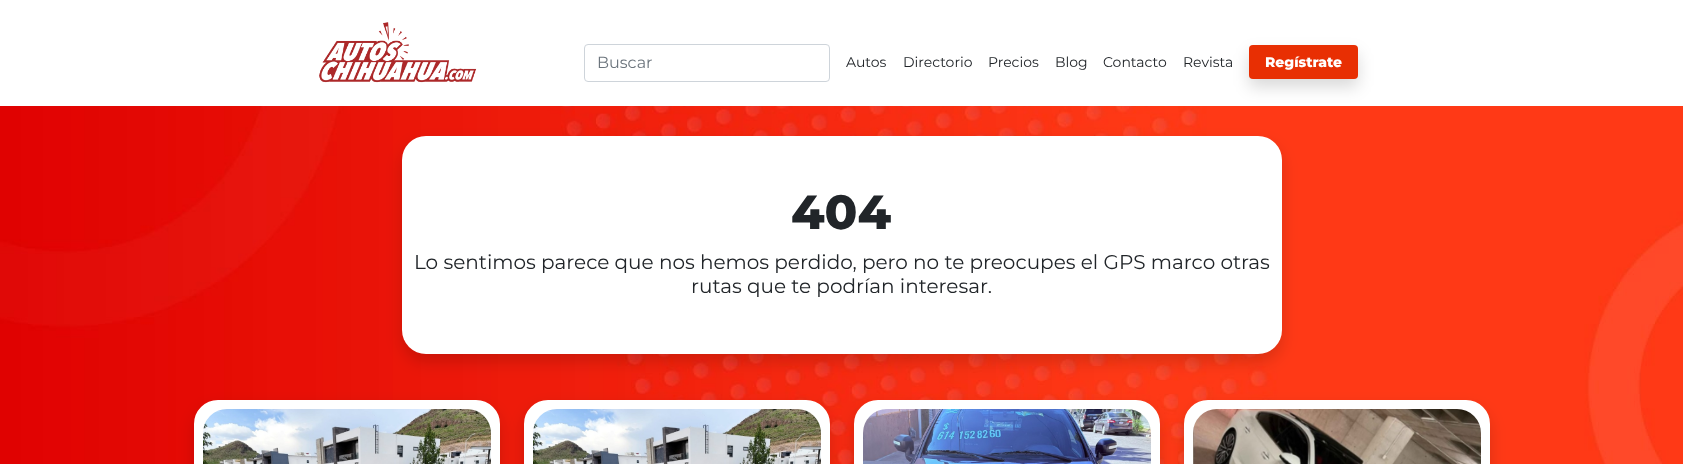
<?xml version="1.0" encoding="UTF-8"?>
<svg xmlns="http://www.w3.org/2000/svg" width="1683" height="464">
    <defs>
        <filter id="blur1" x="-50%" y="-200%" width="200%" height="500%"><feGaussianBlur stdDeviation="8"/></filter>
    </defs>
    <rect width="100%" height="100%" fill="#FFFFFF"/>
    <image x="319" y="22" width="158" height="61" href="img_01.png"/>
    <rect x="584.5" y="44.5" width="245" height="37" rx="3.5" fill="none" stroke="#CED4DA"/>
    <text x="597" y="68" font-family="Montserrat" font-size="16" fill="#6C757D">Buscar</text>
    <text x="846" y="67" font-family="Montserrat" font-size="14" fill="#212529">Autos</text>
    <text x="903" y="67" font-family="Montserrat" font-size="14" fill="#212529">Directorio</text>
    <text x="988" y="67" font-family="Montserrat" font-size="14" fill="#212529">Precios</text>
    <text x="1055" y="67" font-family="Montserrat" font-size="14" fill="#212529">Blog</text>
    <text x="1103" y="67" font-family="Montserrat" font-size="14" fill="#212529">Contacto</text>
    <text x="1183" y="67" font-family="Montserrat" font-size="14" fill="#212529">Revista</text>
    <image x="0" y="106" width="1683" height="358" href="img_02.png"/>
    <rect x="1249" y="53" width="109" height="34" rx="4" fill="#000000" fill-opacity="0.15" filter="url(#blur1)"/>
    <rect x="1249" y="45" width="109" height="34" rx="4" fill="#E82F03"/>
    <text x="1265" y="67" font-family="Montserrat" font-size="14" font-weight="800" fill="#FFFFFF">Regístrate</text>
    <rect x="402" y="144" width="880" height="218" rx="24" fill="#000000" fill-opacity="0.15" filter="url(#blur1)"/>
    <rect x="402" y="136" width="880" height="218" rx="24" fill="#FFFFFF"/>
    <text x="791" y="229" font-family="Montserrat" font-size="48" font-weight="800" fill="#212529">404</text>
    <text x="414" y="269" font-family="Montserrat" font-size="20" fill="#212529">Lo sentimos parece que nos hemos perdido, pero no te preocupes el GPS marco otras</text>
    <text x="691" y="293" font-family="Montserrat" font-size="20" fill="#212529">rutas que te podrían interesar.</text>
    <rect x="194" y="408" width="306" height="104" rx="24" fill="#000000" fill-opacity="0.15" filter="url(#blur1)"/>
    <rect x="198.5" y="404.5" width="297" height="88" rx="19.5" fill="#FFFFFF" stroke="#FFFFFF" stroke-width="9"/>
    <image x="203" y="409" width="288" height="55" href="img_03.png"/>
    <rect x="524" y="408" width="306" height="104" rx="24" fill="#000000" fill-opacity="0.15" filter="url(#blur1)"/>
    <rect x="528.5" y="404.5" width="297" height="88" rx="19.5" fill="#FFFFFF" stroke="#FFFFFF" stroke-width="9"/>
    <image x="533" y="409" width="288" height="55" href="img_03.png"/>
    <rect x="854" y="408" width="306" height="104" rx="24" fill="#000000" fill-opacity="0.15" filter="url(#blur1)"/>
    <rect x="858.5" y="404.5" width="297" height="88" rx="19.5" fill="#FFFFFF" stroke="#FFFFFF" stroke-width="9"/>
    <image x="863" y="409" width="288" height="55" href="img_04.png"/>
    <rect x="1184" y="408" width="306" height="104" rx="24" fill="#000000" fill-opacity="0.15" filter="url(#blur1)"/>
    <rect x="1188.5" y="404.5" width="297" height="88" rx="19.5" fill="#FFFFFF" stroke="#FFFFFF" stroke-width="9"/>
    <image x="1193" y="409" width="288" height="55" href="img_05.png"/>
</svg>
